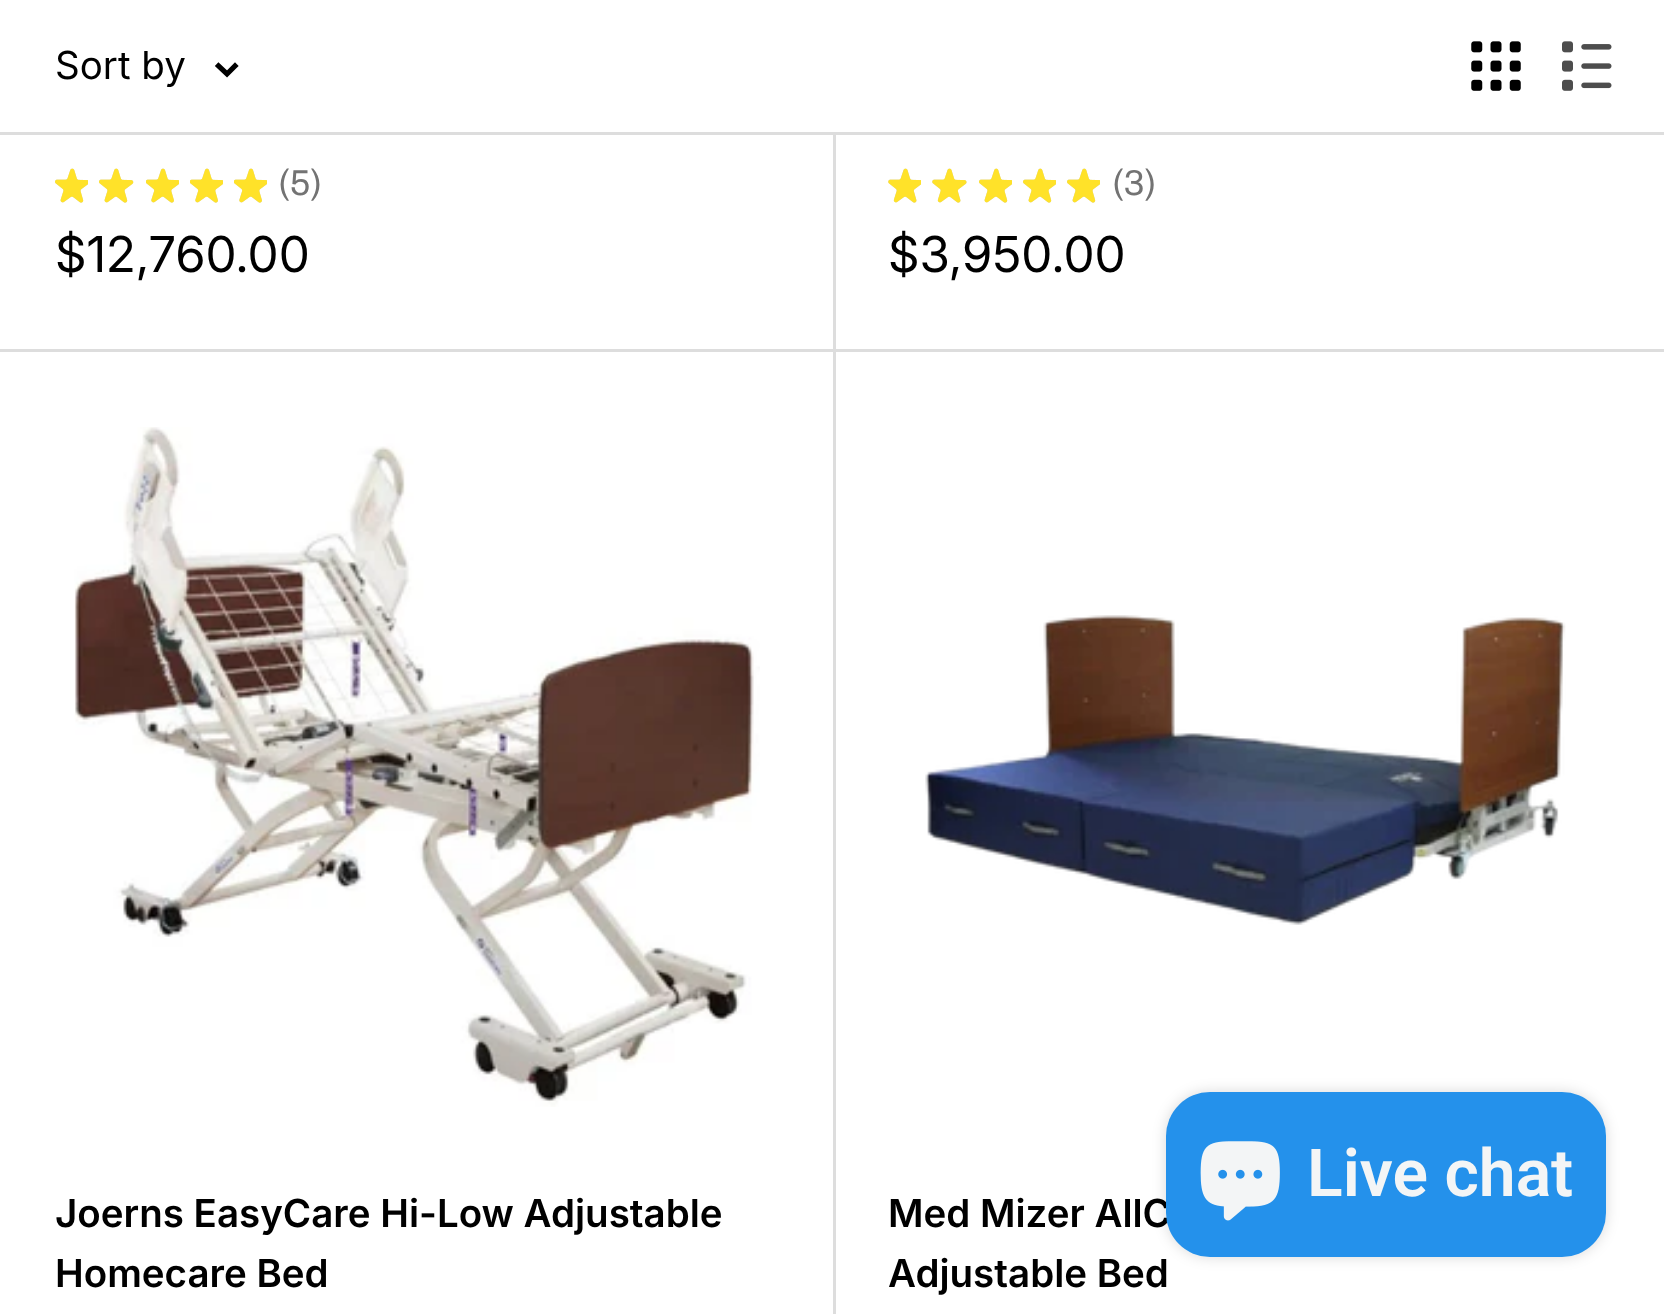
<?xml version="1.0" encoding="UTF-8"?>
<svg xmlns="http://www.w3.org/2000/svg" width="1664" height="1314">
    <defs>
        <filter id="blur1" x="-50%" y="-200%" width="200%" height="500%"><feGaussianBlur stdDeviation="7"/></filter>
    </defs>
    <rect width="100%" height="100%" fill="#FFFFFF"/>
    <path d="M 3 -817 H 833 V 349 H 836 V -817 Z" fill="#DDDDDD"/>
    <path d="M 0 132 V 135 H 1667 V 3 H 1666 V 132 Z" fill="#DDDDDD"/>
    <rect x="833" y="0" width="3" height="132" fill="#FFFFFF"/>
    <text x="55" y="79" font-family="'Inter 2'" font-size="38.5" fill="#000000">Sort by</text>
    <path d="M 235 66 L 227 74 L 218.5 66" fill="none" stroke="#000000" stroke-width="5.2" stroke-linecap="square"/>
    <image x="1471" y="41" width="50" height="50" href="img_01.png"/>
    <image x="1562" y="41" width="50" height="50" href="img_02.png"/>
    <rect x="0" y="349" width="833" height="3" fill="#DDDDDD"/>
    <image x="55" y="168" width="33" height="35" href="img_03.png"/>
    <image x="99" y="168" width="35" height="35" href="img_04.png"/>
    <image x="146" y="168" width="33" height="35" href="img_05.png"/>
    <image x="190" y="168" width="33" height="35" href="img_05.png"/>
    <image x="234" y="168" width="33" height="35" href="img_05.png"/>
    <image x="55" y="168" width="33" height="35" href="img_06.png"/>
    <image x="99" y="168" width="35" height="35" href="img_07.png"/>
    <image x="146" y="168" width="33" height="35" href="img_08.png"/>
    <image x="190" y="168" width="33" height="35" href="img_09.png"/>
    <image x="234" y="168" width="33" height="35" href="img_10.png"/>
    <text x="278" y="195" font-family="Archivo" font-size="36" letter-spacing="-1" fill="#737373">(5)</text>
    <text x="55" y="272" font-family="Inter" font-size="49.5" fill="#000000">$12,760.00</text>
    <image x="888" y="168" width="33" height="35" href="img_11.png"/>
    <image x="932" y="168" width="35" height="35" href="img_12.png"/>
    <image x="979" y="168" width="33" height="35" href="img_03.png"/>
    <image x="1023" y="168" width="33" height="35" href="img_03.png"/>
    <image x="1067" y="168" width="33" height="35" href="img_03.png"/>
    <image x="888" y="168" width="33" height="35" href="img_13.png"/>
    <image x="932" y="168" width="35" height="35" href="img_14.png"/>
    <image x="979" y="168" width="33" height="35" href="img_15.png"/>
    <image x="1023" y="168" width="33" height="35" href="img_16.png"/>
    <image x="1067" y="168" width="33" height="35" href="img_06.png"/>
    <text x="1112" y="195" font-family="Archivo" font-size="36" letter-spacing="-1" fill="#737373">(3)</text>
    <text x="888" y="272" font-family="Inter" font-size="49.5" fill="#000000">$3,950.00</text>
    <path d="M 833 -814 V 352 H 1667 V -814 H 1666 V 349 H 833 Z" fill="#DDDDDD"/>
    <image x="74" y="427" width="686" height="680" href="img_17.png"/>
    <path d="M 3 349 H 833 V 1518 H 836 V 349 Z" fill="#DDDDDD"/>
    <text font-family="Inter" font-size="38.5" font-weight="600" fill="#000000">
        <tspan x="55" y="1227">Joerns EasyCare Hi-Low Adjustable</tspan>
        <tspan x="55" y="1287">Homecare Bed</tspan>
    </text>
    <image x="925" y="615" width="641" height="310" href="img_18.png"/>
    <text font-family="Inter" font-size="38.5" font-weight="600" fill="#000000">
        <tspan x="888" y="1227">Med Mizer AllC</tspan>
        <tspan x="888" y="1287">Adjustable Bed</tspan>
    </text>
    <rect x="1166" y="1092" width="440" height="165" rx="44" fill="#000000" fill-opacity="0.15" filter="url(#blur1)"/>
    <rect x="1166" y="1092" width="440" height="165" rx="44" fill="#2491EB"/>
    <image x="1200" y="1141" width="80" height="80" href="img_19.png"/>
    <text x="1307" y="1196" font-family="Roboto" font-size="66" font-weight="600" fill="#F3F5F6">Live chat</text>
</svg>
